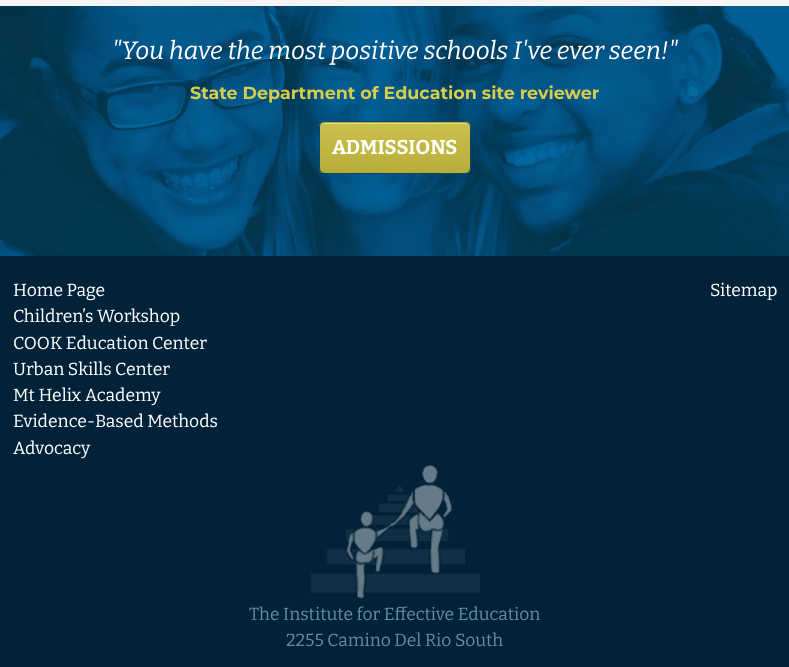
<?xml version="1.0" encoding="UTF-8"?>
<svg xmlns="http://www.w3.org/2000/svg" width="789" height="667">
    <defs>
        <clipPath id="clip1"><rect x="319" y="121" width="152" height="53" rx="6"/></clipPath>
        <linearGradient id="g1" gradientUnits="userSpaceOnUse" x1="395" y1="72" x2="395" y2="123"><stop offset="0" stop-color="#CAC14D"/><stop offset="1" stop-color="#B8AD39"/></linearGradient>
        <linearGradient id="g2" gradientUnits="userSpaceOnUse" x1="395" y1="123" x2="395" y2="173"><stop offset="0" stop-color="#CAC14D"/><stop offset="1" stop-color="#B8AD39"/></linearGradient>
    </defs>
    <rect width="100%" height="100%" fill="#012238"/>
    <rect x="0" y="0" width="789" height="6" fill="#F5F5F5"/>
    <image x="0" y="6" width="789" height="250" href="img_01.png"/>
    <text x="112" y="59" font-family="Bitter" font-size="25" font-weight="100" font-style="italic" fill="#FFFFFF">"You have the most positive schools I've ever seen!"</text>
    <text x="190" y="99" font-family="Montserrat" font-size="17.5" font-weight="700" fill="#D7CC4B">State Department of Education site reviewer</text>
    <g clip-path="url(#clip1)">
        <rect x="319" y="121" width="152" height="2" fill="url(#g1)"/>
        <rect x="319" y="123" width="152" height="50" fill="url(#g2)"/>
    </g>
    <path d="M 325 124 H 465 C 468 124 470 126 470 129 V 128 C 470 125 468 123 465 123 H 325 C 322 123 320 125 320 128 V 129 C 320 126 322 124 325 124 Z" fill="#DDD78B"/>
    <rect x="319.5" y="121.5" width="151" height="52" rx="5.5" fill="none" stroke="#024961"/>
    <text x="332" y="154" font-family="Bitter" font-size="20" font-weight="700" fill="#FFFFFF">ADMISSIONS</text>
    <text font-family="Bitter" font-size="17.5" fill="#FFFFFF">
        <tspan x="13" y="296">Home Page</tspan>
        <tspan x="13" y="322">Children’s Workshop</tspan>
        <tspan x="13" y="349">COOK Education Center</tspan>
        <tspan x="13" y="375">Urban Skills Center</tspan>
        <tspan x="13" y="401">Mt Helix Academy</tspan>
        <tspan x="13" y="427">Evidence-Based Methods</tspan>
        <tspan x="13" y="454">Advocacy</tspan>
    </text>
    <text x="710" y="296" font-family="Bitter" font-size="17.5" fill="#FFFFFF">Sitemap</text>
    <image x="310" y="465" width="170" height="134" href="img_02.png"/>
    <text x="249" y="620" font-family="Bitter" font-size="17.5" fill="#638CA8">The Institute for Effective Education</text>
    <text x="286" y="646" font-family="Bitter" font-size="17.5" fill="#638CA8">2255 Camino Del Rio South</text>
</svg>
